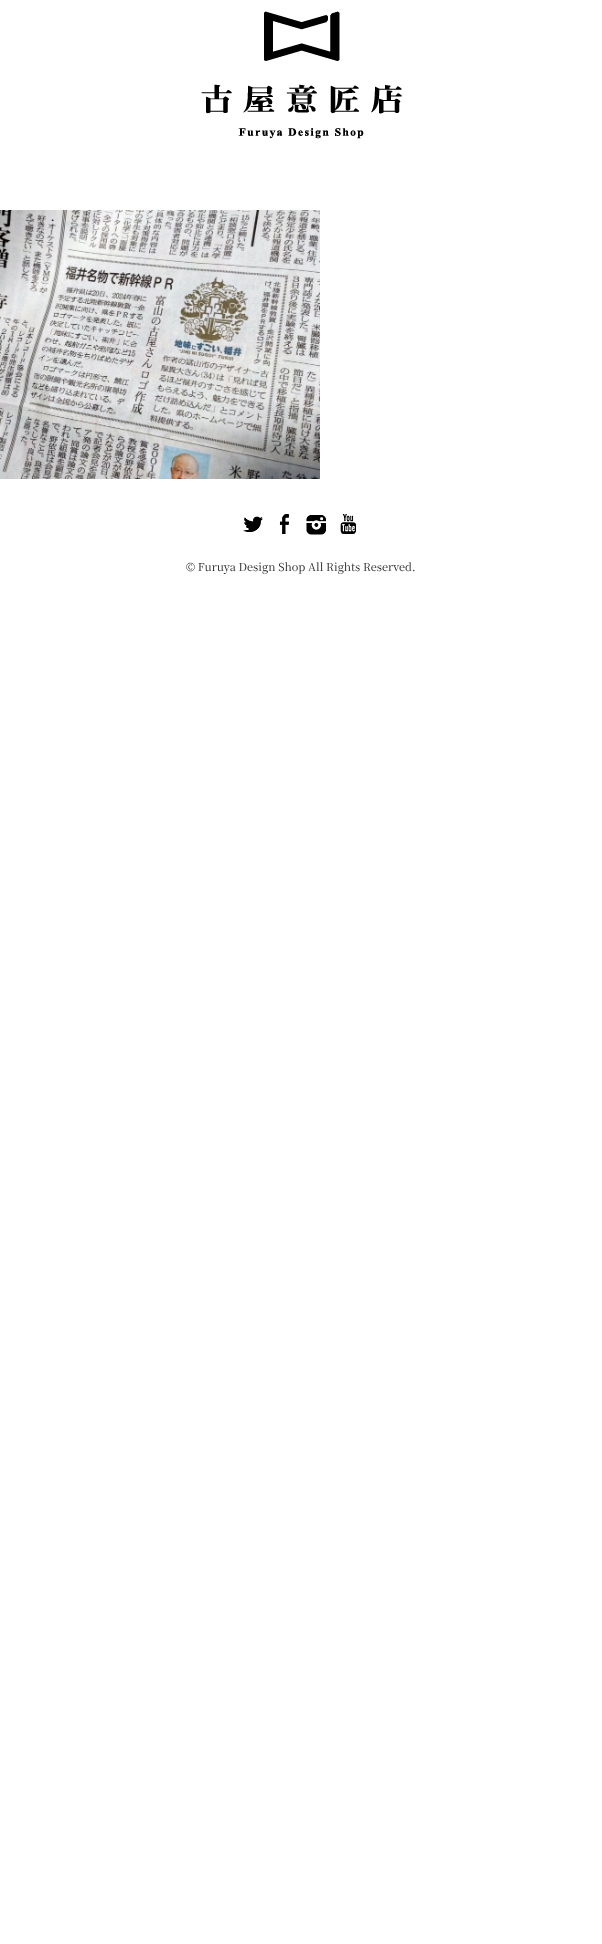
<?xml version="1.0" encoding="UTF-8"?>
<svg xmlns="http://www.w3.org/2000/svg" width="602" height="1944">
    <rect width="100%" height="100%" fill="#FFFFFF"/>
    <image x="201" y="11" width="201" height="128" href="img_01.png"/>
    <image x="0" y="210" width="320" height="269" href="img_02.png"/>
    <image x="243" y="516" width="20" height="16" href="img_03.png"/>
    <image x="279" y="514" width="10" height="20" href="img_04.png"/>
    <image x="306" y="515" width="20" height="20" href="img_05.png"/>
    <image x="340" y="514" width="16" height="20" href="img_06.png"/>
    <text x="186" y="571" font-family="Noto Serif JP" font-size="11" fill="#222222">© Furuya Design Shop All Rights Reserved.</text>
</svg>
